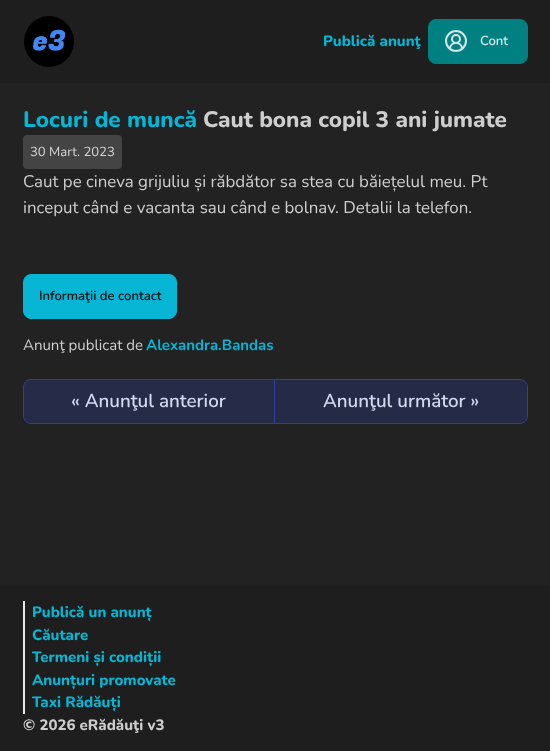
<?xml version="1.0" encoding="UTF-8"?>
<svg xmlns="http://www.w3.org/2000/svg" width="550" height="751">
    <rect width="100%" height="100%" fill="#222222"/>
    <rect x="0" y="0" width="550" height="83" fill="#1E1E1E"/>
    <image x="24" y="16" width="50" height="51" href="img_01.png"/>
    <text x="323" y="46" font-family="Nunito" font-size="15" font-weight="200" fill="#06B6D4">Publică anunţ</text>
    <rect x="428.5" y="19.5" width="99" height="44" rx="7.5" fill="#008080" stroke="#008080"/>
    <path d="M 462 49 C 462 41 450 41 450 49" fill="none" stroke="#D4E5E4" stroke-width="2" stroke-linecap="round" stroke-linejoin="round"/>
    <circle cx="456" cy="39" r="4" fill="none" stroke="#D4E5E4" stroke-width="2"/>
    <circle cx="456" cy="41" r="10" fill="none" stroke="#D4E5E4" stroke-width="2"/>
    <text x="480" y="45" font-family="'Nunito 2'" font-size="13.1" font-weight="200" fill="#D4E5E4">Cont</text>
    <text x="23" y="127" font-family="Nunito" font-size="22.5" font-weight="200" fill="#06B6D4">Locuri de muncă</text>
    <text x="203" y="127" font-family="Nunito" font-size="22.5" font-weight="200" fill="#CECECE">Caut bona copil 3 ani jumate</text>
    <rect x="23" y="135" width="99" height="34" rx="4" fill="#444444"/>
    <text x="30" y="156" font-family="'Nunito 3'" font-size="13.1" font-weight="200" fill="#D6D6D6">30 Mart. 2023</text>
    <text font-family="'Nunito 3'" font-size="16.9" font-weight="200" fill="#CECECE">
        <tspan x="23" y="187">Caut pe cineva grijuliu și răbdător sa stea cu băiețelul meu. Pt</tspan>
        <tspan x="23" y="213">inceput când e vacanta sau când e bolnav. Detalii la telefon.</tspan>
    </text>
    <rect x="23.5" y="274.5" width="153" height="44" rx="7.5" fill="#06B6D4" stroke="#06B6D4"/>
    <text x="39" y="300" font-family="'Nunito 2'" font-size="13.1" font-weight="200" fill="#000C10">Informaţii de contact</text>
    <text x="23" y="350" font-family="'Nunito 3'" font-size="15" font-weight="200" fill="#CECECE">Anunţ publicat de</text>
    <text x="146" y="350" font-family="'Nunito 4'" font-size="15" font-weight="200" fill="#06B6D4">Alexandra.Bandas</text>
    <path d="M 31 379.5 H 274.5 V 423.5 H 31 C 27 423.5 23.5 420 23.5 416 V 387 C 23.5 383 27 379.5 31 379.5 Z" fill="#262B48" stroke="#303F9F"/>
    <text x="71" y="407" font-family="'Nunito 2'" font-size="18.75" font-weight="200" fill="#D1D8EE">« Anunţul anterior</text>
    <path d="M 274.5 379.5 H 520 C 524 379.5 527.5 383 527.5 387 V 416 C 527.5 420 524 423.5 520 423.5 H 274.5 Z" fill="#303F9F" fill-opacity="0.3" stroke="#303F9F"/>
    <text x="323" y="407" font-family="'Nunito 2'" font-size="18.75" font-weight="200" fill="#D1D8EE">Anunţul următor »</text>
    <rect x="0" y="586" width="550" height="165" fill="#1E1E1E"/>
    <rect x="23" y="601" width="2" height="113" fill="#E5E7EB"/>
    <text font-family="Nunito" font-size="15" font-weight="200" fill="#06B6D4">
        <tspan x="32" y="617">Publică un anunț</tspan>
        <tspan x="32" y="640">Căutare</tspan>
        <tspan x="32" y="662">Termeni și condiții</tspan>
        <tspan x="32" y="685">Anunțuri promovate</tspan>
        <tspan x="32" y="707">Taxi Rădăuți</tspan>
    </text>
    <text x="23" y="730" font-family="Nunito" font-size="15" font-weight="200" fill="#CECECE">© 2026 eRădăuţi v3</text>
</svg>
